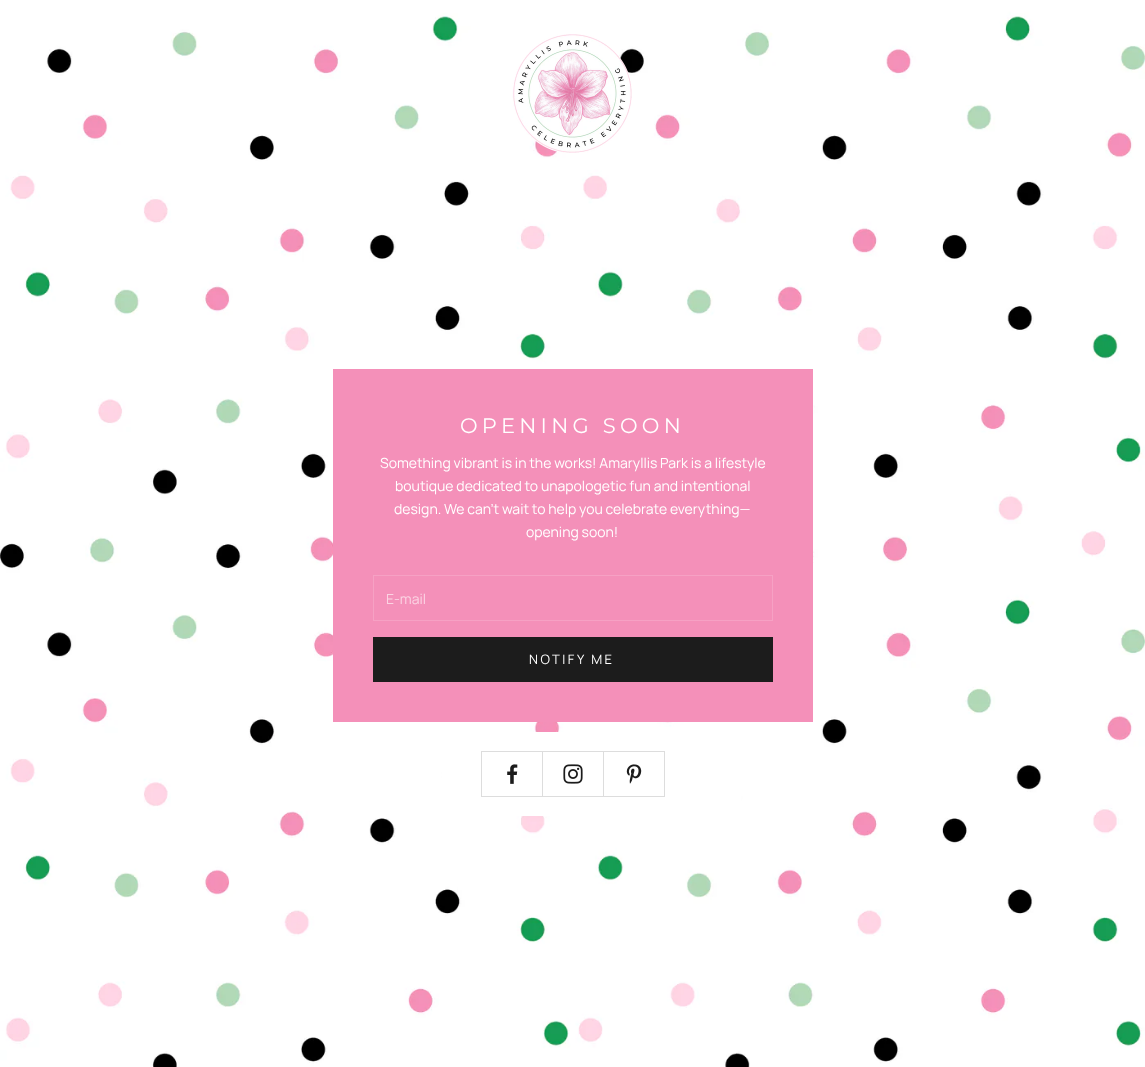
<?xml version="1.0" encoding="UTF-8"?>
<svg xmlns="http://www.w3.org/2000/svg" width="1145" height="1067">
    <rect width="100%" height="100%" fill="#FFFFFF"/>
    <image x="0" y="0" width="1145" height="1067" href="img_01.png"/>
    <image x="512" y="34" width="120" height="119" href="img_02.png"/>
    <rect x="333" y="369" width="480" height="353" fill="#F490B9"/>
    <text x="460" y="433" font-family="Montserrat" font-size="21" letter-spacing="4.25" fill="#FFFFFF">OPENING SOON</text>
    <text x="380" y="468" font-family="Manrope" font-size="14" fill="#FFFFFF">Something vibrant is in the works! Amaryllis Park is a lifestyle</text>
    <text x="395" y="491" font-family="Manrope" font-size="14" fill="#FFFFFF">boutique dedicated to unapologetic fun and intentional</text>
    <text x="394" y="514" font-family="Manrope" font-size="14" fill="#FFFFFF">design. We can’t wait to help you celebrate everything—</text>
    <text x="526" y="537" font-family="Manrope" font-size="14" fill="#FFFFFF">opening soon!</text>
    <rect x="373.5" y="575.5" width="399" height="45" fill="none" stroke="#F6A1C4"/>
    <text x="386" y="604" font-family="Manrope" font-size="14" fill="#FBD3E3">E-mail</text>
    <rect x="373.5" y="637.5" width="399" height="44" fill="#1C1C1C" stroke="#1C1C1C"/>
    <text x="529" y="664" font-family="Manrope" font-size="13" letter-spacing="2.5" fill="#FFFFFF">NOTIFY ME</text>
    <rect x="442" y="732" width="299" height="84" fill="#FFFFFF"/>
    <rect x="481.5" y="751.5" width="61" height="45" fill="none" stroke="#DDDDDD"/>
    <image x="507" y="764" width="11" height="20" href="img_03.png"/>
    <rect x="542.5" y="751.5" width="61" height="45" fill="none" stroke="#DDDDDD"/>
    <image x="563" y="764" width="20" height="20" href="img_04.png"/>
    <rect x="603.5" y="751.5" width="61" height="45" fill="none" stroke="#DDDDDD"/>
    <image x="626" y="764" width="16" height="20" href="img_05.png"/>
</svg>
